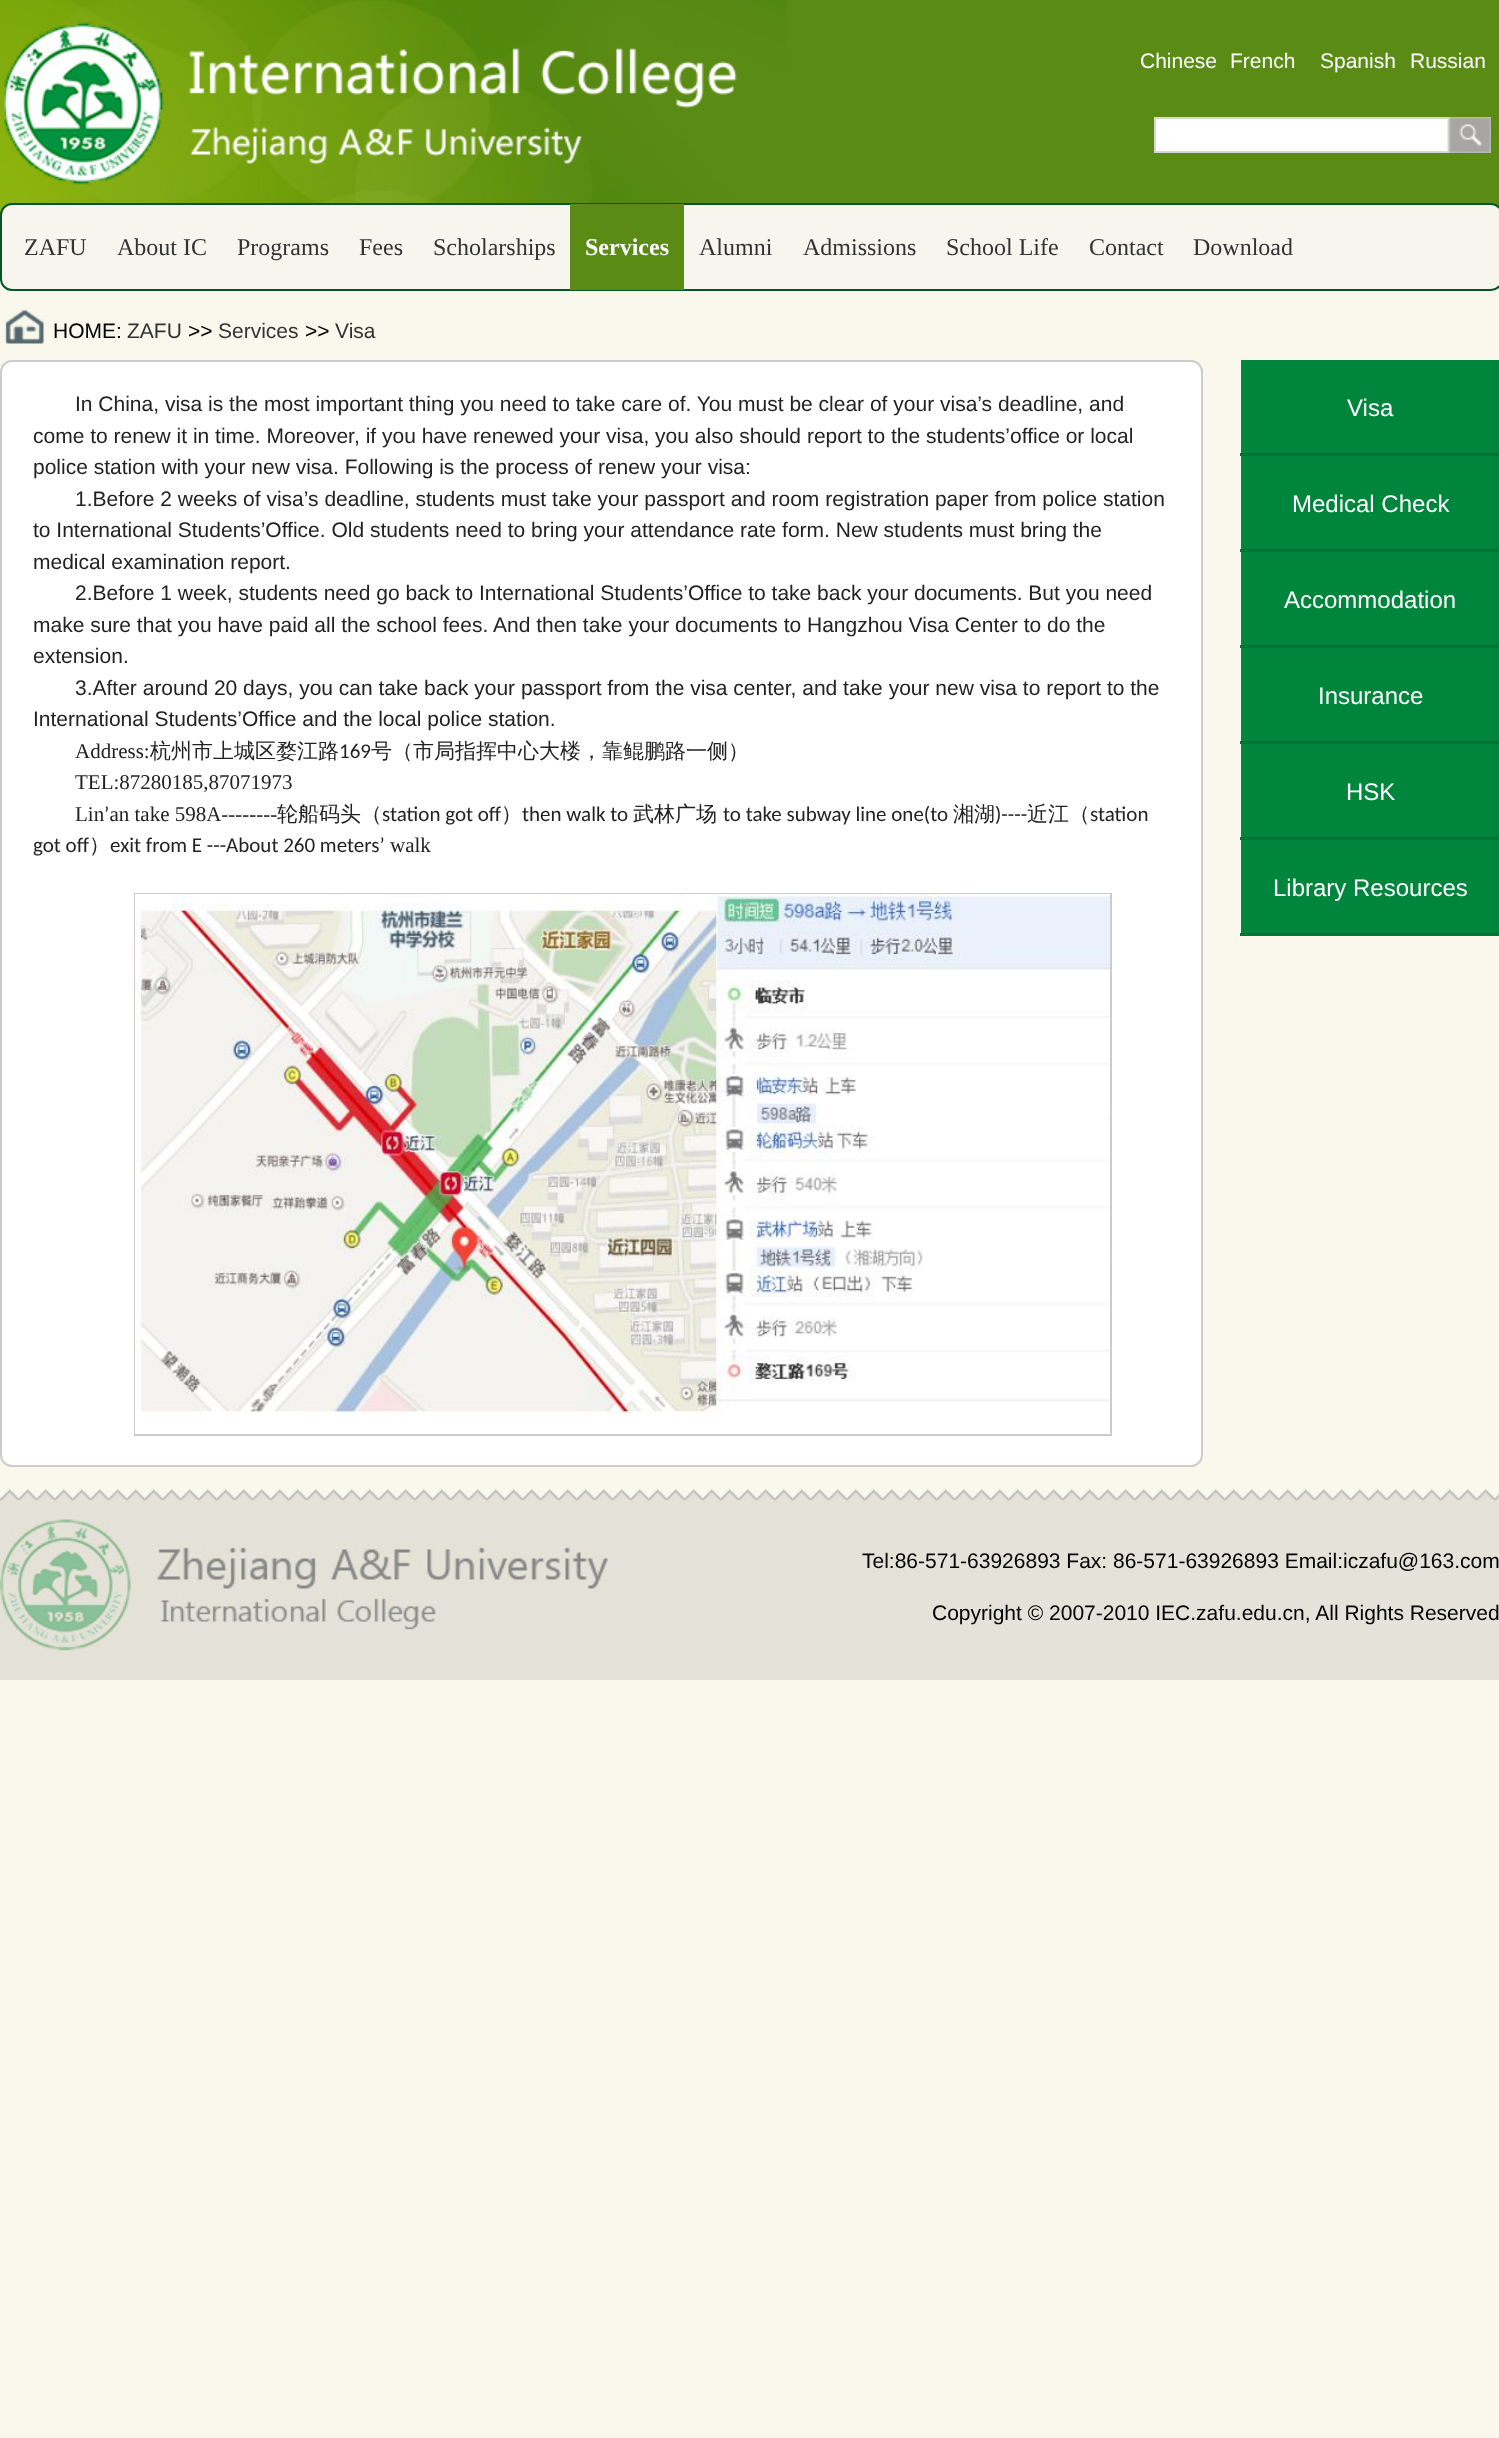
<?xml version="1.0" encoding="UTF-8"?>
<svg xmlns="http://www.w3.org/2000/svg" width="1499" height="2438">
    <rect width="100%" height="100%" fill="#FAF8EC"/>
    <image x="0" y="0" width="1499" height="215" href="img_01.png"/>
    <image x="3" y="22" width="734" height="163" href="img_02.png"/>
    <text x="1140" y="68" font-family="Liberation Sans" font-size="21" fill="#FFFFFF">Chinese</text>
    <text x="1230" y="68" font-family="Liberation Sans" font-size="21" fill="#FFFFFF">French</text>
    <text x="1320" y="68" font-family="Liberation Sans" font-size="21" fill="#FFFFFF">Spanish</text>
    <text x="1410" y="68" font-family="Liberation Sans" font-size="21" fill="#FFFFFF">Russian</text>
    <rect x="1156" y="119" width="292" height="32" fill="#FFFFFF"/>
    <rect x="1155" y="118" width="298" height="34" fill="none" stroke="#D6D6D6" stroke-width="2"/>
    <image x="1447" y="117" width="44" height="36" href="img_03.png"/>
    <rect x="1" y="204" width="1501" height="86" rx="11" fill="#F8F5EE" stroke="#005627" stroke-width="2"/>
    <text x="24" y="255" font-family="Liberation Serif" font-size="24" fill="#333333">ZAFU</text>
    <text x="117" y="255" font-family="Liberation Serif" font-size="24" fill="#333333">About IC</text>
    <text x="237" y="255" font-family="Liberation Serif" font-size="24" fill="#333333">Programs</text>
    <text x="359" y="255" font-family="Liberation Serif" font-size="24" fill="#333333">Fees</text>
    <text x="433" y="255" font-family="Liberation Serif" font-size="24" fill="#333333">Scholarships</text>
    <rect x="570" y="204" width="114" height="86" fill="#5A8B14"/>
    <text x="585" y="255" font-family="Liberation Serif" font-size="24" font-weight="700" fill="#FFFFFF">Services</text>
    <text x="699" y="255" font-family="Liberation Serif" font-size="24" fill="#333333">Alumni</text>
    <text x="803" y="255" font-family="Liberation Serif" font-size="24" fill="#333333">Admissions</text>
    <text x="946" y="255" font-family="Liberation Serif" font-size="24" fill="#333333">School Life</text>
    <text x="1089" y="255" font-family="Liberation Serif" font-size="24" fill="#333333">Contact</text>
    <text x="1193" y="255" font-family="Liberation Serif" font-size="24" fill="#333333">Download</text>
    <image x="0" y="308" width="47" height="36" href="img_04.png"/>
    <text x="53" y="338" font-family="Liberation Sans" font-size="21" fill="#000000">HOME:</text>
    <text x="127" y="338" font-family="Liberation Sans" font-size="21" fill="#333333">ZAFU</text>
    <text x="188" y="338" font-family="Liberation Sans" font-size="21" fill="#000000">&gt;&gt;</text>
    <text x="218" y="338" font-family="Liberation Sans" font-size="21" fill="#333333">Services</text>
    <text x="305" y="338" font-family="Liberation Sans" font-size="21" fill="#000000">&gt;&gt;</text>
    <text x="335" y="338" font-family="Liberation Sans" font-size="21" fill="#333333">Visa</text>
    <rect x="1" y="361" width="1201" height="1105" rx="11" fill="#FFFFFF" stroke="#CCCCCC" stroke-width="2"/>
    <text x="75" y="411" font-family="Liberation Sans" font-size="21" fill="#222222">In China, visa is the most important thing you need to take care of. You must be clear of your visa’s deadline, and</text>
    <text font-family="Liberation Sans" font-size="21" fill="#222222">
        <tspan x="33" y="443">come to renew it in time. Moreover, if you have renewed your visa, you also should report to the students’office or local</tspan>
        <tspan x="33" y="474">police station with your new visa. Following is the process of renew your visa:</tspan>
    </text>
    <text x="75" y="506" font-family="Liberation Sans" font-size="21" fill="#222222">1.Before 2 weeks of visa’s deadline, students must take your passport and room registration paper from police station</text>
    <text font-family="Liberation Sans" font-size="21" fill="#222222">
        <tspan x="33" y="537">to International Students’Office. Old students need to bring your attendance rate form. New students must bring the</tspan>
        <tspan x="33" y="569">medical examination report.</tspan>
    </text>
    <text x="75" y="600" font-family="Liberation Sans" font-size="21" fill="#222222">2.Before 1 week, students need go back to International Students’Office to take back your documents. But you need</text>
    <text font-family="Liberation Sans" font-size="21" fill="#222222">
        <tspan x="33" y="632">make sure that you have paid all the school fees. And then take your documents to Hangzhou Visa Center to do the</tspan>
        <tspan x="33" y="663">extension.</tspan>
    </text>
    <text x="75" y="695" font-family="Liberation Sans" font-size="21" fill="#222222">3.After around 20 days, you can take back your passport from the visa center, and take your new visa to report to the</text>
    <text x="33" y="726" font-family="Liberation Sans" font-size="21" fill="#222222">International Students’Office and the local police station.</text>
    <text x="75" y="758" font-family="Liberation Serif" font-size="21" fill="#222222">Address:</text>
    <text x="150" y="758" font-family="WenQuanYi Zen Hei" font-size="21" font-weight="500" fill="#222222">杭州市上城区婺江路</text>
    <text x="339" y="758" font-family="Carlito" font-size="21" fill="#222222">169</text>
    <text x="371" y="758" font-family="WenQuanYi Zen Hei" font-size="21" font-weight="500" fill="#222222">号（市局指挥中心大楼，靠鲲鹏路一侧）</text>
    <text font-family="Liberation Serif" font-size="21" fill="#222222">
        <tspan x="75" y="789">TEL:87280185,87071973</tspan>
        <tspan x="75" y="821">Lin an take 598A--------</tspan>
    </text>
    <text x="277" y="821" font-family="WenQuanYi Zen Hei" font-size="21" font-weight="500" fill="#222222">轮船码头（</text>
    <text x="633" y="821" font-family="WenQuanYi Zen Hei" font-size="21" font-weight="500" fill="#222222">武林广场</text>
    <text x="723" y="821" font-family="Carlito" font-size="21" fill="#222222">to take subway line one(to</text>
    <text x="953" y="821" font-family="WenQuanYi Zen Hei" font-size="21" font-weight="500" fill="#222222">湘湖</text>
    <text x="995" y="821" font-family="Carlito" font-size="21" fill="#222222">)----</text>
    <text x="1027" y="821" font-family="WenQuanYi Zen Hei" font-size="21" font-weight="500" fill="#222222">近江（</text>
    <text x="104" y="821" font-family="Carlito" font-size="21" fill="#222222">’</text>
    <text x="382" y="821" font-family="Carlito" font-size="21" fill="#222222">station got off</text>
    <text x="501" y="821" font-family="WenQuanYi Zen Hei" font-size="21" font-weight="500" fill="#222222">）</text>
    <text x="522" y="821" font-family="Carlito" font-size="21" fill="#222222">then walk to</text>
    <text x="1090" y="821" font-family="Carlito" font-size="21" fill="#222222">station</text>
    <text x="33" y="852" font-family="Carlito" font-size="21" fill="#222222">got off</text>
    <text x="89" y="852" font-family="WenQuanYi Zen Hei" font-size="21" font-weight="500" fill="#222222">）</text>
    <text x="110" y="852" font-family="Carlito" font-size="21" fill="#222222">exit from E ---About 260 meters’</text>
    <text x="390" y="852" font-family="Liberation Serif" font-size="21" fill="#222222">walk</text>
    <rect x="135" y="894" width="976" height="541" fill="none" stroke="#CCCCCC" stroke-width="2"/>
    <image x="135" y="894" width="975" height="540" href="img_05.png"/>
    <rect x="1241" y="360" width="258" height="573" fill="#00853C"/>
    <rect x="1240" y="453" width="259" height="3" fill="#007334"/>
    <text x="1347" y="416" font-family="Liberation Sans" font-size="24" fill="#FFFFFF">Visa</text>
    <rect x="1240" y="549" width="259" height="3" fill="#007335"/>
    <text x="1292" y="512" font-family="Liberation Sans" font-size="24" fill="#FFFFFF">Medical Check</text>
    <rect x="1240" y="645" width="259" height="3" fill="#007335"/>
    <text x="1284" y="608" font-family="Liberation Sans" font-size="24" fill="#FFFFFF">Accommodation</text>
    <rect x="1240" y="741" width="259" height="3" fill="#007334"/>
    <text x="1318" y="704" font-family="Liberation Sans" font-size="24" fill="#FFFFFF">Insurance</text>
    <rect x="1240" y="837" width="259" height="3" fill="#007335"/>
    <text x="1346" y="800" font-family="Liberation Sans" font-size="24" fill="#FFFFFF">HSK</text>
    <rect x="1240" y="933" width="259" height="3" fill="#007335"/>
    <text x="1273" y="896" font-family="Liberation Sans" font-size="24" fill="#FFFFFF">Library Resources</text>
    <image x="0" y="1489" width="1499" height="191" href="img_06.png"/>
    <image x="0" y="1519" width="609" height="132" href="img_07.png"/>
    <text x="862" y="1568" font-family="Liberation Sans" font-size="21" fill="#000000">Tel:86-571-63926893 Fax: 86-571-63926893 Email:iczafu@163.com</text>
    <text x="932" y="1620" font-family="Liberation Sans" font-size="21" fill="#000000">Copyright © 2007-2010 IEC.zafu.edu.cn, All Rights Reserved</text>
</svg>
